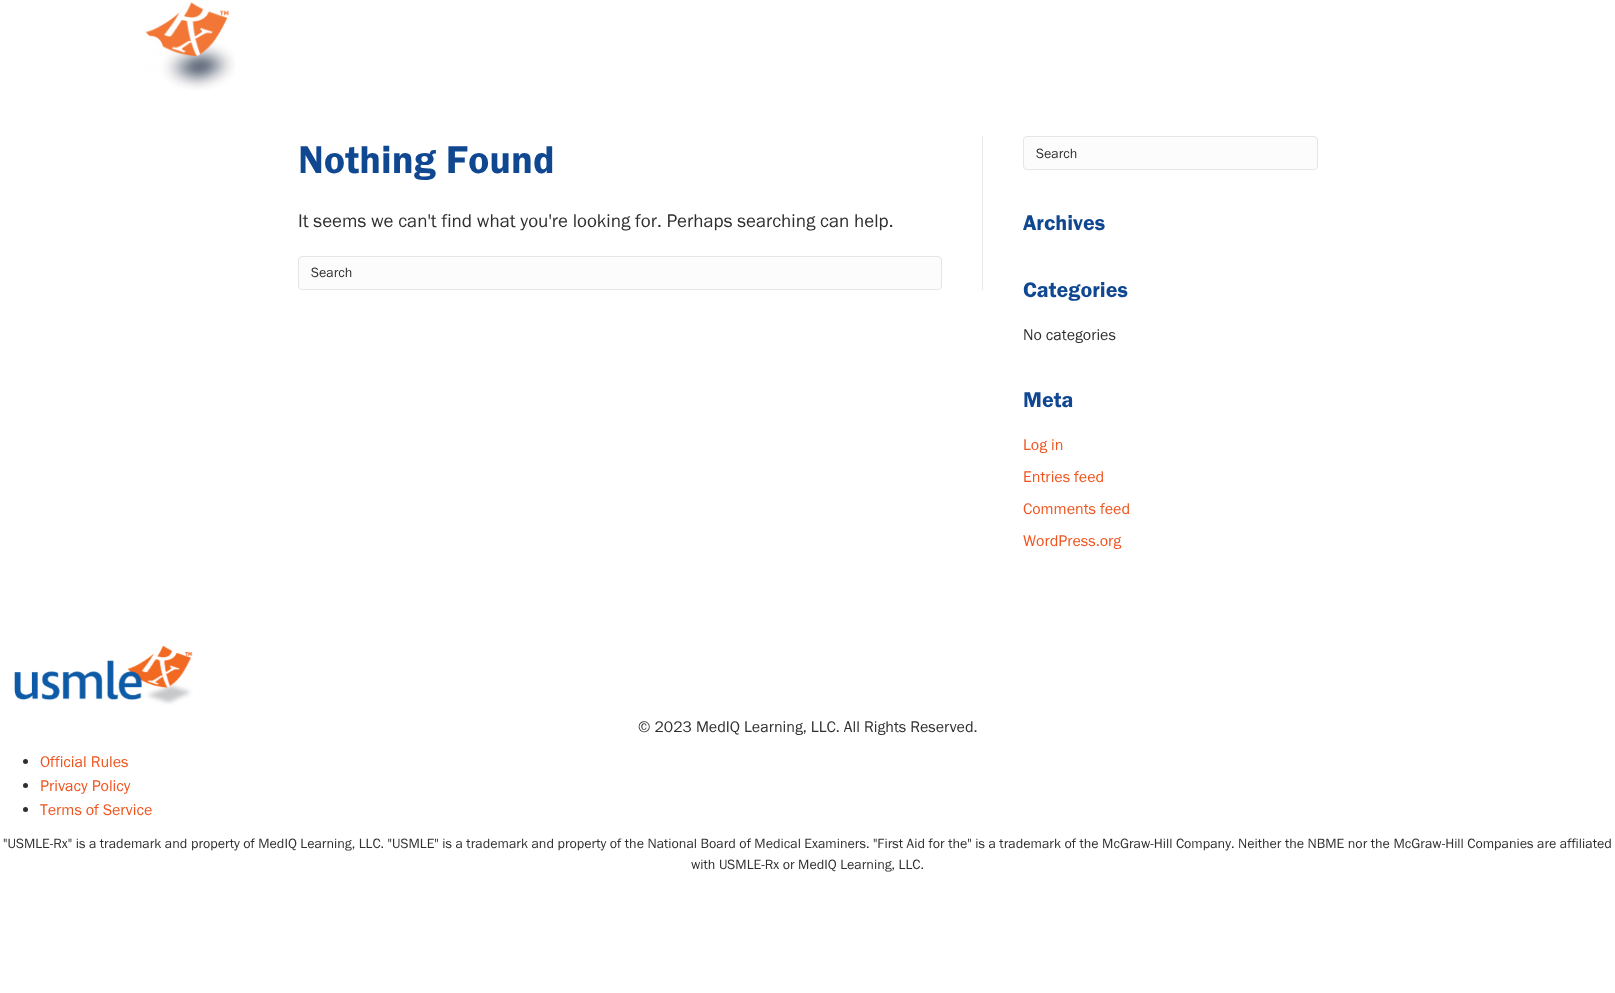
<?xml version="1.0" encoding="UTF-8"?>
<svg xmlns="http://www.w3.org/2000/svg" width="1615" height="993">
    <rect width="100%" height="100%" fill="#FFFFFF"/>
    <image x="145" y="0" width="90" height="90" href="img_01.png"/>
    <rect x="982" y="136" width="1" height="154" fill="#E6E6E6"/>
    <text x="298" y="173" font-family="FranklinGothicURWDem" font-size="40" fill="#104791">Nothing Found</text>
    <text x="298" y="227" font-family="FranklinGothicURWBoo" font-size="19" fill="#2F2F2F">It seems we can't find what you're looking for. Perhaps searching can help.</text>
    <rect x="298.5" y="256.5" width="643" height="33" rx="3.5" fill="#FCFCFC" stroke="#E6E6E6"/>
    <text x="311" y="277" font-family="FranklinGothicURWBoo" font-size="14" fill="#2F2F2F">Search</text>
    <rect x="1023.5" y="136.5" width="294" height="33" rx="3.5" fill="#FCFCFC" stroke="#E6E6E6"/>
    <text x="1036" y="158" font-family="FranklinGothicURWBoo" font-size="14" fill="#2F2F2F">Search</text>
    <text x="1023" y="230" font-family="FranklinGothicURWDem" font-size="22" fill="#104791">Archives</text>
    <text x="1023" y="297" font-family="FranklinGothicURWDem" font-size="22" fill="#104791">Categories</text>
    <text x="1023" y="340" font-family="FranklinGothicURWBoo" font-size="16" fill="#2F2F2F">No categories</text>
    <text x="1023" y="407" font-family="FranklinGothicURWDem" font-size="22" fill="#104791">Meta</text>
    <text x="1023" y="450" font-family="FranklinGothicURWBoo" font-size="16" fill="#EF541E">Log in</text>
    <text x="1023" y="482" font-family="FranklinGothicURWBoo" font-size="16" fill="#EF541E">Entries feed</text>
    <text x="1023" y="514" font-family="FranklinGothicURWBoo" font-size="16" fill="#EF541E">Comments feed</text>
    <text x="1023" y="546" font-family="FranklinGothicURWBoo" font-size="16" fill="#EF541E">WordPress.org</text>
    <image x="14" y="645" width="179" height="60" href="img_02.png"/>
    <text x="638" y="732" font-family="FranklinGothicURWBoo" font-size="16" fill="#2F2F2F">© 2023 MedIQ Learning, LLC. All Rights Reserved.</text>
    <circle cx="25.5" cy="761.5" r="2.5" fill="#2F2F2F"/>
    <text x="40" y="767" font-family="FranklinGothicURWBoo" font-size="16" fill="#EF541E">Official Rules</text>
    <circle cx="25.5" cy="785.5" r="2.5" fill="#2F2F2F"/>
    <text x="40" y="791" font-family="FranklinGothicURWBoo" font-size="16" fill="#EF541E">Privacy Policy</text>
    <circle cx="25.5" cy="809.5" r="2.5" fill="#2F2F2F"/>
    <text x="40" y="815" font-family="FranklinGothicURWBoo" font-size="16" fill="#EF541E">Terms of Service</text>
    <text x="3" y="848" font-family="FranklinGothicURWBoo" font-size="14" fill="#2F2F2F">"USMLE-Rx" is a trademark and property of MedIQ Learning, LLC. "USMLE" is a trademark and property of the National Board of Medical Examiners. "First Aid for the" is a trademark of the McGraw-Hill Company. Neither the NBME nor the McGraw-Hill Companies are affiliated</text>
    <text x="691" y="869" font-family="FranklinGothicURWBoo" font-size="14" fill="#2F2F2F">with USMLE-Rx or MedIQ Learning, LLC.</text>
</svg>
